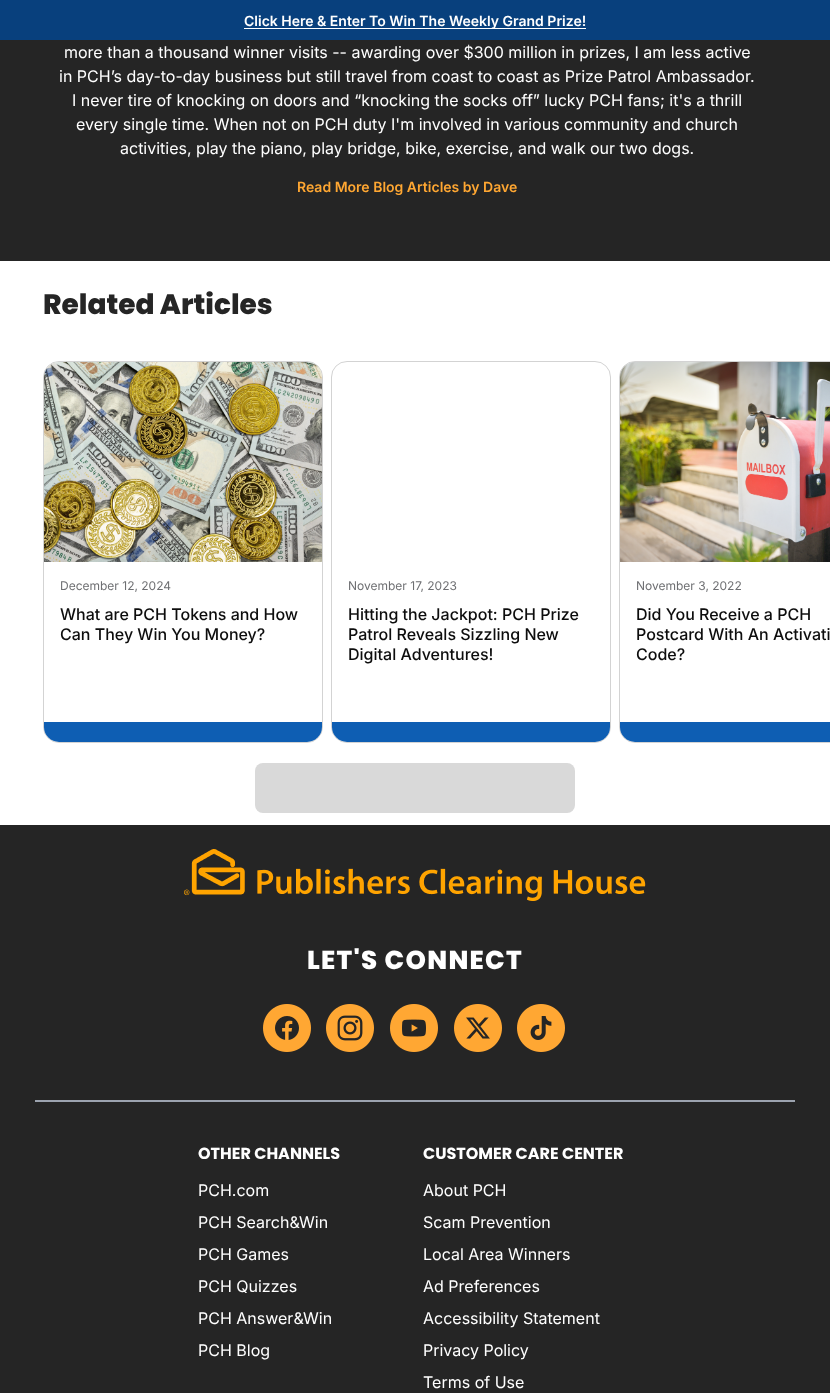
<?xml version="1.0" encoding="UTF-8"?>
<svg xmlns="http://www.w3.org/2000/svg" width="830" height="1393">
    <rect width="100%" height="100%" fill="#FFFFFF"/>
    <rect x="0" y="0" width="830" height="40" fill="#08407D"/>
    <rect x="244" y="28" width="342" height="1" fill="#FFFFFF"/>
    <text x="244" y="26" font-family="Inter" font-size="14" font-weight="600" fill="#FFFFFF">Click Here &amp; Enter To Win The Weekly Grand Prize!</text>
    <rect x="0" y="40" width="830" height="221" fill="#252525"/>
    <text x="64" y="58" font-family="Inter" font-size="16" fill="#FFFFFF">more than a thousand winner visits -- awarding over $300 million in prizes, I am less active</text>
    <text x="59" y="82" font-family="Inter" font-size="16" fill="#FFFFFF">in PCH’s day-to-day business but still travel from coast to coast as Prize Patrol Ambassador.</text>
    <text x="72" y="106" font-family="Inter" font-size="16" fill="#FFFFFF">I never tire of knocking on doors and “knocking the socks off” lucky PCH fans; it's a thrill</text>
    <text x="76" y="130" font-family="Inter" font-size="16" fill="#FFFFFF">every single time. When not on PCH duty I'm involved in various community and church</text>
    <text x="120" y="154" font-family="Inter" font-size="16" fill="#FFFFFF">activities, play the piano, play bridge, bike, exercise, and walk our two dogs.</text>
    <text x="297" y="192" font-family="Inter" font-size="14" font-weight="600" fill="#FFA732">Read More Blog Articles by Dave</text>
    <text x="43" y="314" font-family="Poppins" font-size="28" font-weight="800" fill="#252525">Related Articles</text>
    <rect x="43.5" y="361.5" width="279" height="381" rx="15.5" fill="none" stroke="#D3D3D3"/>
    <image x="44" y="362" width="278" height="200" href="img_01.png"/>
    <image x="44" y="722" width="278" height="20" href="img_02.png"/>
    <text x="60" y="590" font-family="Inter" font-size="12" fill="#6E6F72">December 12, 2024</text>
    <text font-family="Inter" font-size="16" font-weight="500" fill="#0D0D0D">
        <tspan x="60" y="620">What are PCH Tokens and How</tspan>
        <tspan x="60" y="640">Can They Win You Money?</tspan>
    </text>
    <rect x="331.5" y="361.5" width="279" height="381" rx="15.5" fill="none" stroke="#D3D3D3"/>
    <image x="332" y="722" width="278" height="20" href="img_02.png"/>
    <text x="348" y="590" font-family="Inter" font-size="12" fill="#6E6F72">November 17, 2023</text>
    <text font-family="Inter" font-size="16" font-weight="500" fill="#0D0D0D">
        <tspan x="348" y="620">Hitting the Jackpot: PCH Prize</tspan>
        <tspan x="348" y="640">Patrol Reveals Sizzling New</tspan>
        <tspan x="348" y="660">Digital Adventures!</tspan>
    </text>
    <rect x="619.5" y="361.5" width="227" height="381" rx="15.5" fill="none" stroke="#D3D3D3"/>
    <image x="620" y="362" width="210" height="200" href="img_03.png"/>
    <image x="620" y="722" width="210" height="20" href="img_04.png"/>
    <text x="636" y="590" font-family="Inter" font-size="12" fill="#6E6F72">November 3, 2022</text>
    <text font-family="Inter" font-size="16" font-weight="500" fill="#0D0D0D">
        <tspan x="636" y="620">Did You Receive a PCH</tspan>
        <tspan x="636" y="640">Postcard With An Activati</tspan>
        <tspan x="636" y="660">Code?</tspan>
    </text>
    <rect x="255" y="763" width="320" height="50" rx="8" fill="#D9D9D9"/>
    <rect x="0" y="825" width="830" height="568" fill="#252525"/>
    <rect x="35" y="1100" width="760" height="2" fill="#9CA3AF"/>
    <image x="184" y="849" width="462" height="52" href="img_05.png"/>
    <text x="307" y="969" font-family="Poppins" font-size="26" font-weight="800" letter-spacing="1.25" fill="#FFFFFF">LET'S CONNECT</text>
    <image x="263" y="1004" width="48" height="48" href="img_06.png"/>
    <image x="326" y="1004" width="48" height="48" href="img_07.png"/>
    <image x="390" y="1004" width="48" height="48" href="img_08.png"/>
    <image x="454" y="1004" width="48" height="48" href="img_09.png"/>
    <image x="517" y="1004" width="48" height="48" href="img_10.png"/>
    <text x="198" y="1159" font-family="Poppins" font-size="16" font-weight="700" fill="#FFFFFF">OTHER CHANNELS</text>
    <text x="198" y="1196" font-family="Inter" font-size="16" fill="#FFFFFF">PCH.com</text>
    <text x="198" y="1228" font-family="Inter" font-size="16" fill="#FFFFFF">PCH Search&amp;Win</text>
    <text x="198" y="1260" font-family="Inter" font-size="16" fill="#FFFFFF">PCH Games</text>
    <text x="198" y="1292" font-family="Inter" font-size="16" fill="#FFFFFF">PCH Quizzes</text>
    <text x="198" y="1324" font-family="Inter" font-size="16" fill="#FFFFFF">PCH Answer&amp;Win</text>
    <text x="198" y="1356" font-family="Inter" font-size="16" fill="#FFFFFF">PCH Blog</text>
    <text x="423" y="1159" font-family="Poppins" font-size="16" font-weight="700" fill="#FFFFFF">CUSTOMER CARE CENTER</text>
    <text x="423" y="1196" font-family="Inter" font-size="16" fill="#FFFFFF">About PCH</text>
    <text x="423" y="1228" font-family="Inter" font-size="16" fill="#FFFFFF">Scam Prevention</text>
    <text x="423" y="1260" font-family="Inter" font-size="16" fill="#FFFFFF">Local Area Winners</text>
    <text x="423" y="1292" font-family="Inter" font-size="16" fill="#FFFFFF">Ad Preferences</text>
    <text x="423" y="1324" font-family="Inter" font-size="16" fill="#FFFFFF">Accessibility Statement</text>
    <text x="423" y="1356" font-family="Inter" font-size="16" fill="#FFFFFF">Privacy Policy</text>
    <text x="423" y="1388" font-family="Inter" font-size="16" fill="#FFFFFF">Terms of Use</text>
</svg>
